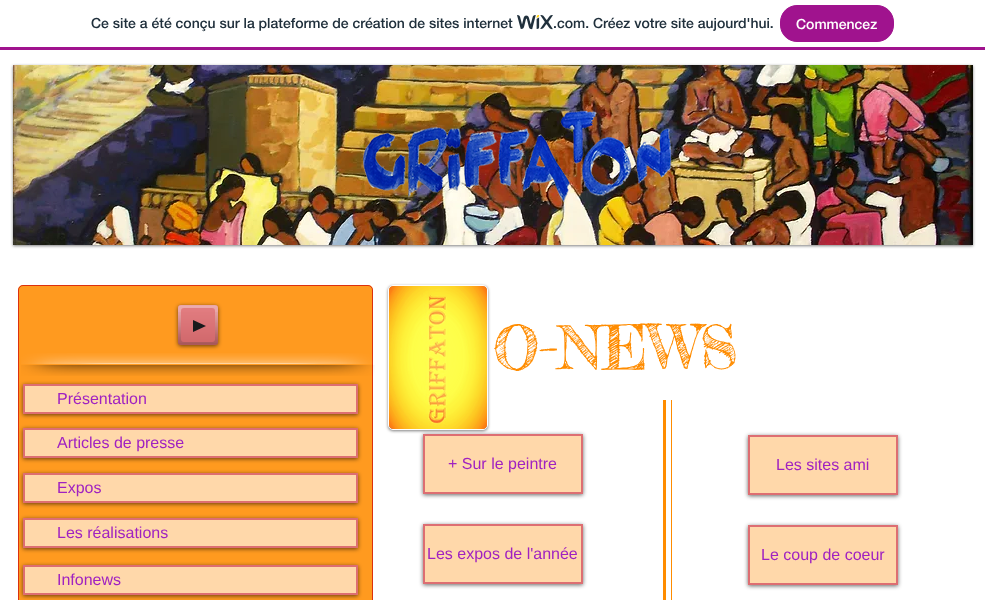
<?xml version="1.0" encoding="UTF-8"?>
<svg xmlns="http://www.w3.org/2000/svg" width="985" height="600">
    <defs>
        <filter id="blur1" x="-50%" y="-200%" width="200%" height="500%"><feGaussianBlur stdDeviation="1.5"/></filter>
        <filter id="blur2" x="-50%" y="-200%" width="200%" height="500%"><feGaussianBlur stdDeviation="2"/></filter>
    </defs>
    <rect width="100%" height="100%" fill="#FFFFFF"/>
    <rect x="0" y="47" width="985" height="3" fill="#A0138E"/>
    <text x="91" y="28" font-family="'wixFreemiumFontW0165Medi'" font-size="14" font-weight="500" fill="#20303C">Ce site a été conçu sur la plateforme de création de sites internet</text>
    <image x="517" y="15" width="36" height="15" href="img_01.png"/>
    <text x="553" y="28" font-family="'wixFreemiumFontW0165Medi'" font-size="14" font-weight="500" fill="#20303C">.com. Créez votre site aujourd'hui.</text>
    <rect x="780.5" y="5.5" width="113" height="36" rx="16.5" fill="#A0138E" stroke="#A0138E"/>
    <text x="796" y="29" font-family="'wixFreemiumFontW0165Medi'" font-size="14" font-weight="500" fill="#FFFFFF">Commencez</text>
    <rect x="13" y="66" width="960" height="180" fill="#000000" fill-opacity="0.5" filter="url(#blur1)"/>
    <image x="13" y="65" width="960" height="180" href="img_02.png"/>
    <image x="362" y="110" width="313" height="95" href="img_03.png"/>
    <rect x="18" y="285" width="355" height="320" rx="5" fill="#FF9A1F"/>
    <rect x="18.5" y="285.5" width="354" height="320" rx="4.5" fill="none" stroke="#CC0006" stroke-opacity="0.68"/>
    <rect x="178" y="306" width="40" height="40" rx="3" fill="#000000" fill-opacity="0.6" filter="url(#blur2)"/>
    <rect x="178" y="305" width="40" height="40" rx="3" fill="#DD6E72"/>
    <image x="178" y="305" width="40" height="40" href="img_04.png"/>
    <image x="178" y="312" width="40" height="33" href="img_05.png"/>
    <rect x="181" y="308" width="34" height="34" rx="3" fill="#DD6E72" fill-opacity="0.75"/>
    <path d="M 193 332 V 320 L 206 326 Z" fill="#181A1C"/>
    <image x="21" y="353" width="97" height="23" href="img_06.png"/>
    <image x="118" y="353" width="160" height="23" href="img_07.png"/>
    <image x="278" y="353" width="97" height="23" href="img_08.png"/>
    <rect x="23" y="385" width="335" height="30" fill="#000000" fill-opacity="0.6" filter="url(#blur2)"/>
    <rect x="24" y="385" width="333" height="28" fill="#FFD8AA" stroke="#DD6E72" stroke-width="2"/>
    <text x="57" y="404" font-family="Liberation Sans" font-size="16" fill="#A022C1">Présentation</text>
    <rect x="23" y="429" width="335" height="30" fill="#000000" fill-opacity="0.6" filter="url(#blur2)"/>
    <rect x="24" y="429" width="333" height="28" fill="#FFD8AA" stroke="#DD6E72" stroke-width="2"/>
    <text x="57" y="448" font-family="Liberation Sans" font-size="16" fill="#A022C1">Articles de presse</text>
    <rect x="23" y="474" width="335" height="30" fill="#000000" fill-opacity="0.6" filter="url(#blur2)"/>
    <rect x="24" y="474" width="333" height="28" fill="#FFD8AA" stroke="#DD6E72" stroke-width="2"/>
    <text x="57" y="493" font-family="Liberation Sans" font-size="16" fill="#A022C1">Expos</text>
    <rect x="23" y="519" width="335" height="30" fill="#000000" fill-opacity="0.6" filter="url(#blur2)"/>
    <rect x="24" y="519" width="333" height="28" fill="#FFD8AA" stroke="#DD6E72" stroke-width="2"/>
    <text x="57" y="538" font-family="Liberation Sans" font-size="16" fill="#A022C1">Les réalisations</text>
    <rect x="23" y="566" width="335" height="30" fill="#000000" fill-opacity="0.6" filter="url(#blur2)"/>
    <rect x="24" y="566" width="333" height="28" fill="#FFD8AA" stroke="#DD6E72" stroke-width="2"/>
    <text x="57" y="585" font-family="Liberation Sans" font-size="16" fill="#A022C1">Infonews</text>
    <rect x="423" y="435" width="160" height="60" fill="#000000" fill-opacity="0.6" filter="url(#blur2)"/>
    <rect x="424" y="435" width="158" height="58" fill="#FFD8AA" stroke="#DD6E72" stroke-width="2"/>
    <rect x="388" y="286" width="100" height="145" rx="5" fill="#000000" fill-opacity="0.5" filter="url(#blur1)"/>
    <rect x="388.5" y="285.5" width="99" height="144" rx="4.5" fill="none" stroke="#FFFFFF"/>
    <image x="389" y="286" width="98" height="143" href="img_09.png"/>
    <text x="493" y="369" font-family="Fredericka the Great" font-size="60" fill="#FF8C00">O-NEWS</text>
    <text x="448" y="469" font-family="Liberation Sans" font-size="16" fill="#A022C1">+ Sur le peintre</text>
    <rect x="671" y="400" width="1" height="200" fill="#FF8C00"/>
    <rect x="663" y="400" width="3" height="200" fill="#FF8C00"/>
    <rect x="748" y="436" width="150" height="60" fill="#000000" fill-opacity="0.6" filter="url(#blur2)"/>
    <rect x="749" y="436" width="148" height="58" fill="#FFD8AA" stroke="#DD6E72" stroke-width="2"/>
    <text x="776" y="470" font-family="Liberation Sans" font-size="16" fill="#A022C1">Les sites ami</text>
    <rect x="423" y="525" width="160" height="60" fill="#000000" fill-opacity="0.6" filter="url(#blur2)"/>
    <rect x="424" y="525" width="158" height="58" fill="#FFD8AA" stroke="#DD6E72" stroke-width="2"/>
    <text x="427" y="559" font-family="Liberation Sans" font-size="16" fill="#A022C1">Les expos de l'année</text>
    <rect x="748" y="526" width="150" height="60" fill="#000000" fill-opacity="0.6" filter="url(#blur2)"/>
    <rect x="749" y="526" width="148" height="58" fill="#FFD8AA" stroke="#DD6E72" stroke-width="2"/>
    <text x="761" y="560" font-family="Liberation Sans" font-size="16" fill="#A022C1">Le coup de coeur</text>
</svg>
